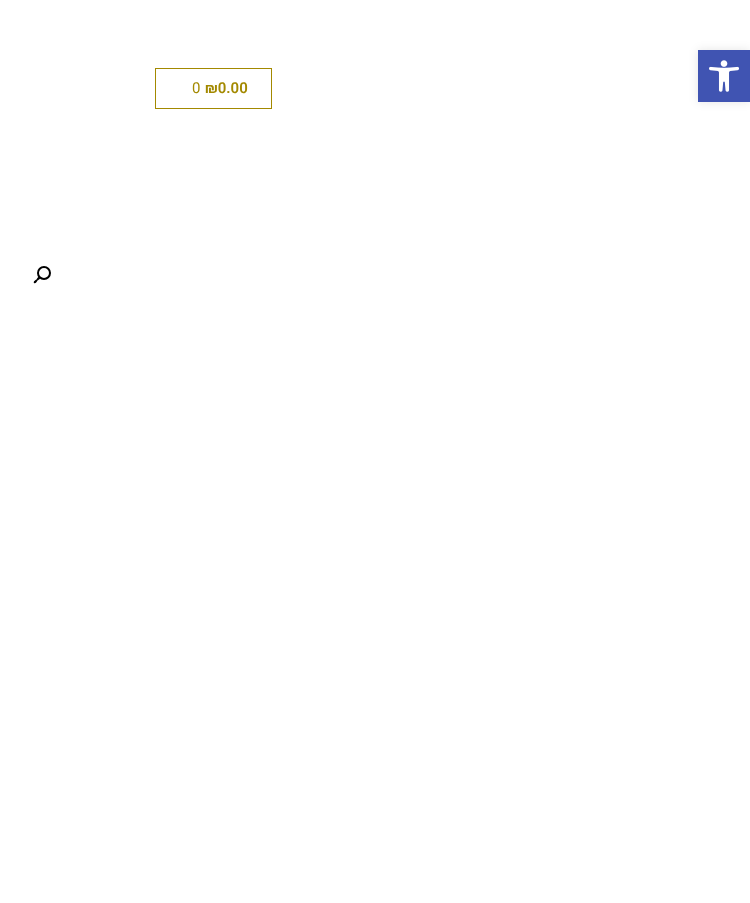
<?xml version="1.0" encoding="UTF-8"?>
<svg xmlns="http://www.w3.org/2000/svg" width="750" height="903">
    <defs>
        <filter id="blur1" x="-50%" y="-200%" width="200%" height="500%"><feGaussianBlur stdDeviation="5"/></filter>
    </defs>
    <rect width="100%" height="100%" fill="#FFFFFF"/>
    <rect x="155.5" y="68.5" width="116" height="40" fill="none" stroke="#A38900"/>
    <text x="192" y="93" font-family="Roboto" font-size="15" fill="#A38900">0</text>
    <text x="205" y="93" font-family="Roboto" font-size="15" font-weight="600" fill="#A38900">₪0.00</text>
    <circle cx="44" cy="273" r="6" fill="none" stroke="#000000" stroke-width="2"/>
    <path d="M 40 277 C 41 278.5 38.5 280 37.5 280.5 C 37 281.5 35.5 284 34 283 C 33 281.5 35.5 280 36.5 279.5 C 37 278.5 38.5 276 40 277 Z" fill="#000000"/>
    <rect x="698" y="50" width="52" height="52" fill="#000000" fill-opacity="0.1" filter="url(#blur1)"/>
    <rect x="698" y="50" width="52" height="52" fill="#4054B2"/>
    <image x="709" y="60" width="30" height="32" href="img_01.png"/>
</svg>
